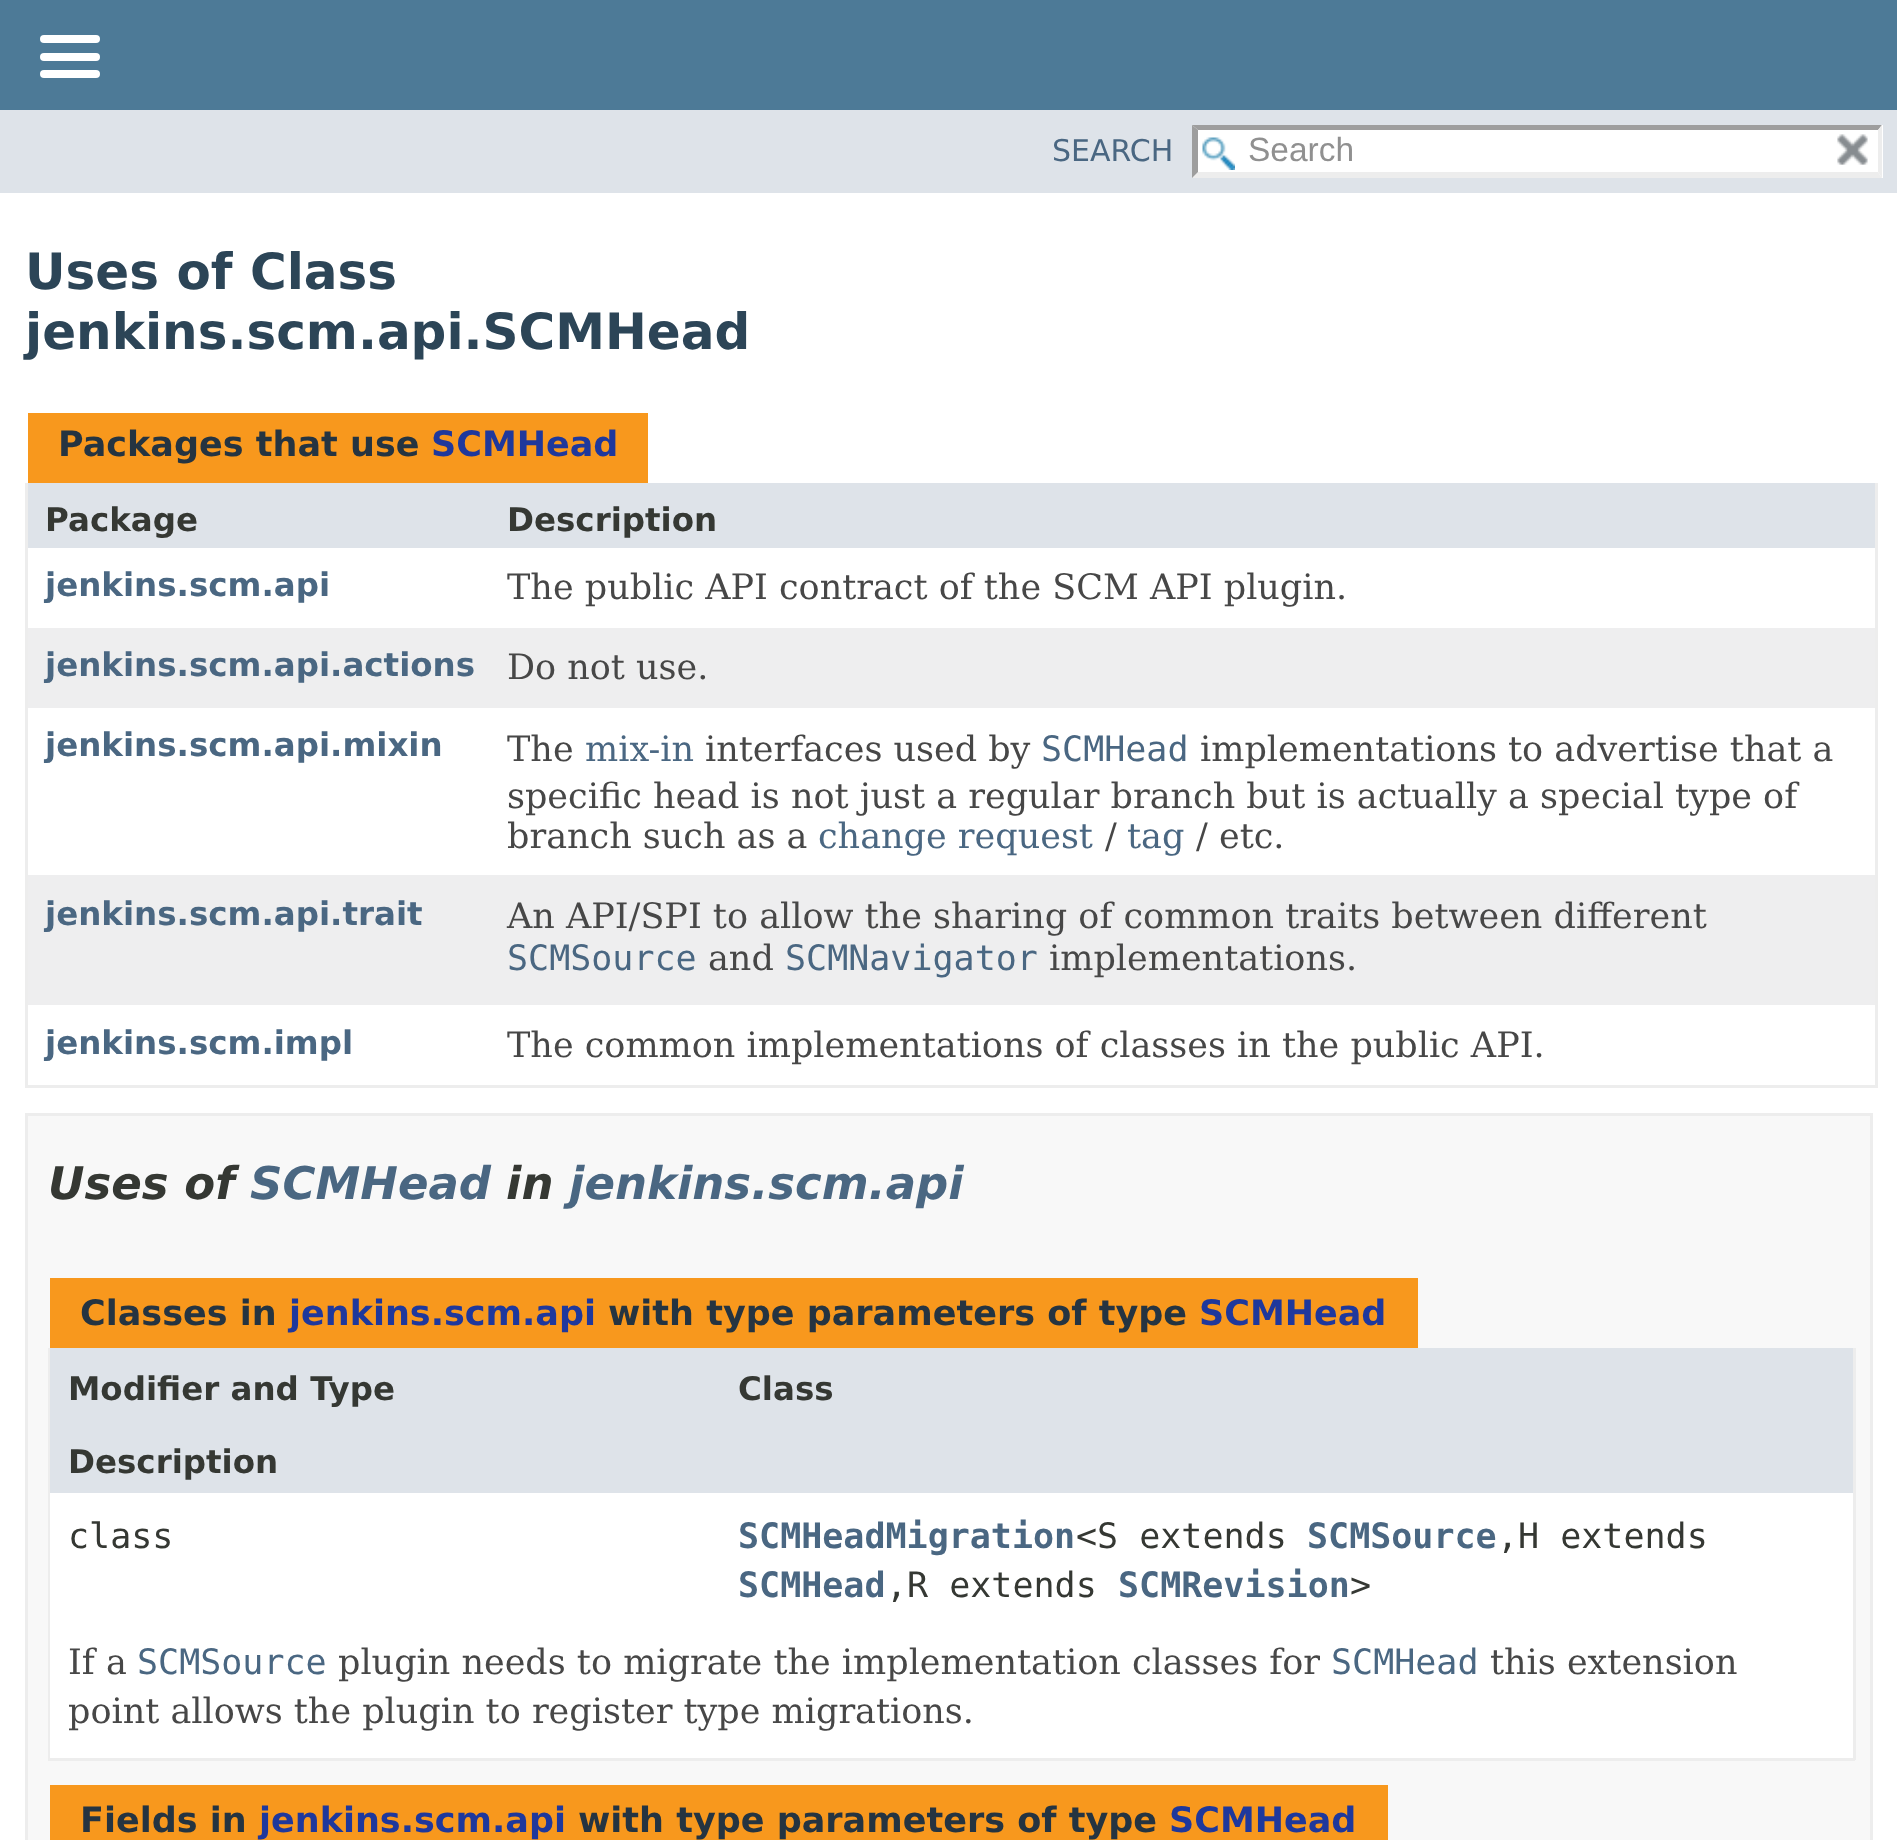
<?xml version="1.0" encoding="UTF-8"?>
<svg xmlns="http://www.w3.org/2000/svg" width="1897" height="1840">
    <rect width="100%" height="100%" fill="#FFFFFF"/>
    <rect x="0" y="0" width="1897" height="110" fill="#4D7A97"/>
    <rect x="40" y="35" width="60" height="8" rx="4" fill="#FFFFFF"/>
    <rect x="40" y="53" width="60" height="8" rx="4" fill="#FFFFFF"/>
    <rect x="40" y="70" width="60" height="8" rx="4" fill="#FFFFFF"/>
    <rect x="0" y="110" width="1897" height="83" fill="#DEE3E9"/>
    <text x="1052" y="161" font-family="DejaVu Sans" font-size="30" fill="#4A6782">SEARCH</text>
    <rect x="1193" y="125" width="690" height="53" fill="#FFFFFF"/>
    <image x="1202" y="137" width="33" height="33" href="img_01.png"/>
    <path d="M 1192 125 H 1882 L 1878 130 H 1198 Z" fill="#9E9E9E"/>
    <path d="M 1882 125 V 178 L 1878 172 V 130 Z" fill="#EDEDED"/>
    <path d="M 1882 178 H 1192 L 1198 172 H 1878 Z" fill="#EDEDED"/>
    <path d="M 1192 178 V 125 L 1198 130 V 172 Z" fill="#9E9E9E"/>
    <text x="1248" y="161" font-family="Liberation Sans" font-size="33.5" fill="#909090">Search</text>
    <image x="1837" y="134" width="31" height="31" href="img_02.png"/>
    <text font-family="DejaVu Sans" font-size="50" font-weight="700" fill="#2C4557">
        <tspan x="25" y="289">Uses of Class</tspan>
        <tspan x="25" y="349">jenkins.scm.api.SCMHead</tspan>
    </text>
    <rect x="28" y="413" width="620" height="70" fill="#F8981D"/>
    <text x="58" y="456" font-family="DejaVu Sans" font-size="35" font-weight="700" fill="#253441">Packages that use</text>
    <text x="431" y="456" font-family="DejaVu Sans" font-size="35" font-weight="700" fill="#1F389C">SCMHead</text>
    <rect x="1875" y="483" width="3" height="605" fill="#EDEDED"/>
    <rect x="25" y="1085" width="1853" height="3" fill="#EDEDED"/>
    <rect x="25" y="483" width="3" height="605" fill="#EDEDED"/>
    <rect x="28" y="483" width="1847" height="65" fill="#DEE3E9"/>
    <text x="45" y="531" font-family="DejaVu Sans" font-size="32.5" font-weight="700" fill="#353833">Package</text>
    <text x="507" y="531" font-family="DejaVu Sans" font-size="32.5" font-weight="700" fill="#353833">Description</text>
    <text x="45" y="596" font-family="DejaVu Sans" font-size="32.5" font-weight="700" fill="#4A6782">jenkins.scm.api</text>
    <text x="507" y="599" font-family="DejaVu Serif" font-size="35" fill="#474747">The public API contract of the SCM API plugin.</text>
    <rect x="28" y="628" width="1847" height="80" fill="#EEEEEF"/>
    <text x="45" y="676" font-family="DejaVu Sans" font-size="32.5" font-weight="700" fill="#4A6782">jenkins.scm.api.actions</text>
    <text x="507" y="679" font-family="DejaVu Serif" font-size="35" fill="#474747">Do not use.</text>
    <text x="45" y="756" font-family="DejaVu Sans" font-size="32.5" font-weight="700" fill="#4A6782">jenkins.scm.api.mixin</text>
    <text x="507" y="761" font-family="DejaVu Serif" font-size="35" fill="#474747">The</text>
    <text x="585" y="761" font-family="DejaVu Serif" font-size="35" fill="#4A6782">mix-in</text>
    <text x="705" y="761" font-family="DejaVu Serif" font-size="35" fill="#474747">interfaces used by</text>
    <text x="1041" y="761" font-family="DejaVu Sans Mono" font-size="35" fill="#4A6782">SCMHead</text>
    <text x="1200" y="761" font-family="DejaVu Serif" font-size="35" fill="#474747">implementations to advertise that a</text>
    <text font-family="DejaVu Serif" font-size="35" fill="#474747">
        <tspan x="507" y="808">specific head is not just a regular branch but is actually a special type of</tspan>
        <tspan x="507" y="848">branch such as a</tspan>
    </text>
    <text x="818" y="848" font-family="DejaVu Serif" font-size="35" fill="#4A6782">change request</text>
    <text x="1105" y="848" font-family="DejaVu Serif" font-size="35" fill="#474747">/</text>
    <text x="1127" y="848" font-family="DejaVu Serif" font-size="35" fill="#4A6782">tag</text>
    <text x="1196" y="848" font-family="DejaVu Serif" font-size="35" fill="#474747">/ etc.</text>
    <rect x="28" y="875" width="1847" height="130" fill="#EEEEEF"/>
    <text x="45" y="925" font-family="DejaVu Sans" font-size="32.5" font-weight="700" fill="#4A6782">jenkins.scm.api.trait</text>
    <text x="507" y="928" font-family="DejaVu Serif" font-size="35" fill="#474747">An API/SPI to allow the sharing of common traits between different</text>
    <text x="507" y="970" font-family="DejaVu Sans Mono" font-size="35" fill="#4A6782">SCMSource</text>
    <text x="708" y="970" font-family="DejaVu Serif" font-size="35" fill="#474747">and</text>
    <text x="785" y="970" font-family="DejaVu Sans Mono" font-size="35" fill="#4A6782">SCMNavigator</text>
    <text x="1049" y="970" font-family="DejaVu Serif" font-size="35" fill="#474747">implementations.</text>
    <text x="45" y="1054" font-family="DejaVu Sans" font-size="32.5" font-weight="700" fill="#4A6782">jenkins.scm.impl</text>
    <text x="507" y="1057" font-family="DejaVu Serif" font-size="35" fill="#474747">The common implementations of classes in the public API.</text>
    <rect x="26.5" y="1114.5" width="1845" height="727" fill="#F8F8F8" stroke="#EDEDED" stroke-width="3"/>
    <text x="48" y="1199" font-family="DejaVu Sans" font-size="45" font-weight="700" font-style="italic" fill="#353833">Uses of</text>
    <text x="250" y="1199" font-family="DejaVu Sans" font-size="45" font-weight="700" font-style="italic" fill="#4A6782">SCMHead</text>
    <text x="506" y="1199" font-family="DejaVu Sans" font-size="45" font-weight="700" font-style="italic" fill="#353833">in</text>
    <text x="569" y="1199" font-family="DejaVu Sans" font-size="45" font-weight="700" font-style="italic" fill="#4A6782">jenkins.scm.api</text>
    <rect x="50" y="1278" width="1368" height="70" fill="#F8981D"/>
    <text x="80" y="1325" font-family="DejaVu Sans" font-size="35" font-weight="700" fill="#253441">Classes in</text>
    <text x="289" y="1325" font-family="DejaVu Sans" font-size="35" font-weight="700" fill="#1F389C">jenkins.scm.api</text>
    <text x="608" y="1325" font-family="DejaVu Sans" font-size="35" font-weight="700" fill="#253441">with type parameters of type</text>
    <text x="1199" y="1325" font-family="DejaVu Sans" font-size="35" font-weight="700" fill="#1F389C">SCMHead</text>
    <rect x="1853" y="1348" width="3" height="412" fill="#EDEDED"/>
    <rect x="48" y="1758" width="1807" height="3" fill="#EDEDED"/>
    <rect x="48" y="1348" width="3" height="412" fill="#EDEDED"/>
    <rect x="50" y="1348" width="1803" height="145" fill="#DEE3E9"/>
    <text x="68" y="1400" font-family="DejaVu Sans" font-size="32.5" font-weight="700" fill="#353833">Modifier and Type</text>
    <text x="738" y="1400" font-family="DejaVu Sans" font-size="32.5" font-weight="700" fill="#353833">Class</text>
    <text x="68" y="1473" font-family="DejaVu Sans" font-size="32.5" font-weight="700" fill="#353833">Description</text>
    <rect x="50" y="1493" width="1803" height="265" fill="#FFFFFF"/>
    <text x="68" y="1548" font-family="DejaVu Sans Mono" font-size="35" fill="#353833">class</text>
    <text x="738" y="1548" font-family="DejaVu Sans Mono" font-size="35" font-weight="700" fill="#4A6782">SCMHeadMigration</text>
    <text x="1076" y="1548" font-family="DejaVu Sans Mono" font-size="35" fill="#353833">&lt;S extends</text>
    <text x="1307" y="1548" font-family="DejaVu Sans Mono" font-size="35" font-weight="700" fill="#4A6782">SCMSource</text>
    <text x="1497" y="1548" font-family="DejaVu Sans Mono" font-size="35" fill="#353833">,H extends</text>
    <text x="738" y="1597" font-family="DejaVu Sans Mono" font-size="35" font-weight="700" fill="#4A6782">SCMHead</text>
    <text x="886" y="1597" font-family="DejaVu Sans Mono" font-size="35" fill="#353833">,R extends</text>
    <text x="1118" y="1597" font-family="DejaVu Sans Mono" font-size="35" font-weight="700" fill="#4A6782">SCMRevision</text>
    <text x="1350" y="1597" font-family="DejaVu Sans Mono" font-size="35" fill="#353833">&gt;</text>
    <text x="68" y="1674" font-family="DejaVu Serif" font-size="35" fill="#474747">If a</text>
    <text x="137" y="1674" font-family="DejaVu Sans Mono" font-size="35" fill="#4A6782">SCMSource</text>
    <text x="338" y="1674" font-family="DejaVu Serif" font-size="35" fill="#474747">plugin needs to migrate the implementation classes for</text>
    <text x="1331" y="1674" font-family="DejaVu Sans Mono" font-size="35" fill="#4A6782">SCMHead</text>
    <text x="1490" y="1674" font-family="DejaVu Serif" font-size="35" fill="#474747">this extension</text>
    <text x="68" y="1723" font-family="DejaVu Serif" font-size="35" fill="#474747">point allows the plugin to register type migrations.</text>
    <rect x="50" y="1785" width="1338" height="55" fill="#F8981D"/>
    <text x="80" y="1832" font-family="DejaVu Sans" font-size="35" font-weight="700" fill="#253441">Fields in</text>
    <text x="259" y="1832" font-family="DejaVu Sans" font-size="35" font-weight="700" fill="#1F389C">jenkins.scm.api</text>
    <text x="578" y="1832" font-family="DejaVu Sans" font-size="35" font-weight="700" fill="#253441">with type parameters of type</text>
    <text x="1169" y="1832" font-family="DejaVu Sans" font-size="35" font-weight="700" fill="#1F389C">SCMHead</text>
</svg>
